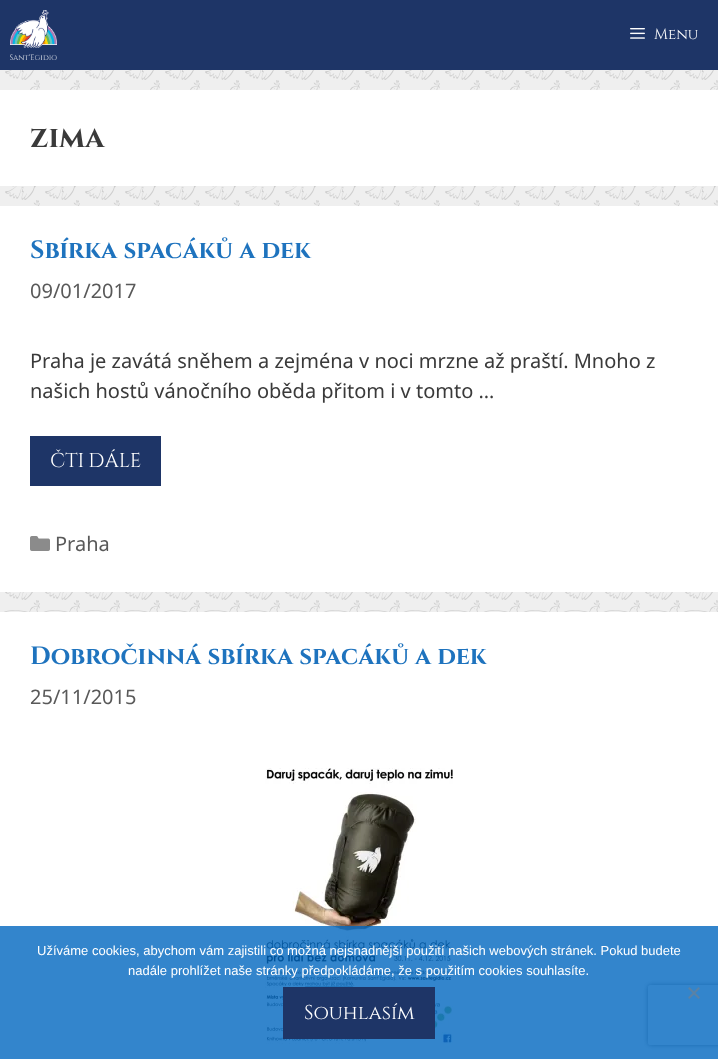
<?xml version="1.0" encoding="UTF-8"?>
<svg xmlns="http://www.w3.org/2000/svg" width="718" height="1059">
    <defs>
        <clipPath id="clip1"><path d="M 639 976 H 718 V 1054 H 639 Z M 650 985 H 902 C 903 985 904 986 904 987 V 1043 C 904 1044 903 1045 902 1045 H 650 C 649 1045 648 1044 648 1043 V 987 C 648 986 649 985 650 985 Z" clip-rule="evenodd"/></clipPath>
        <filter id="blur1" x="-50%" y="-200%" width="200%" height="500%"><feGaussianBlur stdDeviation="2.5"/></filter>
    </defs>
    <rect width="100%" height="100%" fill="#EFEFEF"/>
    <image x="4" y="70" width="714" height="542" href="img_01.png"/>
    <rect x="0" y="0" width="718" height="70" fill="#1E3567"/>
    <image x="10" y="10" width="47" height="50" href="img_02.png"/>
    <image x="630" y="28" width="15" height="11" href="img_03.png"/>
    <text x="654" y="39" font-family="Cinzel" font-size="15" fill="#FFFFFF">Menu</text>
    <rect x="0" y="90" width="718" height="96" fill="#FFFFFF"/>
    <text x="30" y="147" font-family="Cinzel" font-size="30" font-weight="700" fill="#3A3A3A">zima</text>
    <rect x="0" y="206" width="718" height="386" fill="#FFFFFF"/>
    <text x="30" y="258" font-family="Cinzel" font-size="25" font-weight="700" fill="#1E73BE">Sbírka spacáků a dek</text>
    <text x="30" y="298" font-family="Noto Sans" font-size="20" fill="#595959">09/01/2017</text>
    <text font-family="Noto Sans" font-size="20" fill="#3A3A3A">
        <tspan x="30" y="368">Praha je zavátá sněhem a zejména v noci mrzne až praští. Mnoho z</tspan>
        <tspan x="30" y="398">našich hostů vánočního oběda přitom i v tomto …</tspan>
    </text>
    <rect x="30" y="436" width="131" height="50" fill="#1E3567"/>
    <text x="50" y="467" word-spacing="-1" font-family="Cinzel" font-size="20" fill="#FFFFFF">ČTI DÁLE</text>
    <image x="30" y="536" width="20" height="15" href="img_04.png"/>
    <text x="55" y="551" font-family="Noto Sans" font-size="20" fill="#595959">Praha</text>
    <rect x="0" y="612" width="718" height="447" fill="#FFFFFF"/>
    <text x="30" y="664" font-family="Cinzel" font-size="25" font-weight="700" fill="#1E73BE">Dobročinná sbírka spacáků a dek</text>
    <text x="30" y="704" font-family="Noto Sans" font-size="20" fill="#595959">25/11/2015</text>
    <image x="265" y="768" width="188" height="280" href="img_05.png"/>
    <g clip-path="url(#clip1)">
        <rect x="648" y="985" width="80" height="60" rx="2" fill="#808080" filter="url(#blur1)"/>
    </g>
    <rect x="0" y="926" width="718" height="133" fill="#0066BF" fill-opacity="0.8"/>
    <text x="37" y="955" font-family="Liberation Sans" font-size="13" fill="#FFFFFF">Užíváme cookies, abychom vám zajistili co možná nejsnadnější použití našich webových stránek. Pokud budete</text>
    <text x="128" y="975" font-family="Liberation Sans" font-size="13" fill="#FFFFFF">nadále prohlížet naše stránky předpokládáme, že s použitím cookies souhlasíte.</text>
    <path d="M 698.5 987 L 700 988.5 L 689.5 999 L 688 997.5 Z" fill="#5A82A6"/>
    <path d="M 688 988.5 L 689.5 987 L 700 997.5 L 698.5 999 Z" fill="#5A82A6"/>
    <rect x="283" y="987" width="152" height="52" fill="#1E3567"/>
    <text x="304" y="1019" font-family="Cinzel" font-size="20" fill="#FFFFFF">Souhlasím</text>
</svg>
